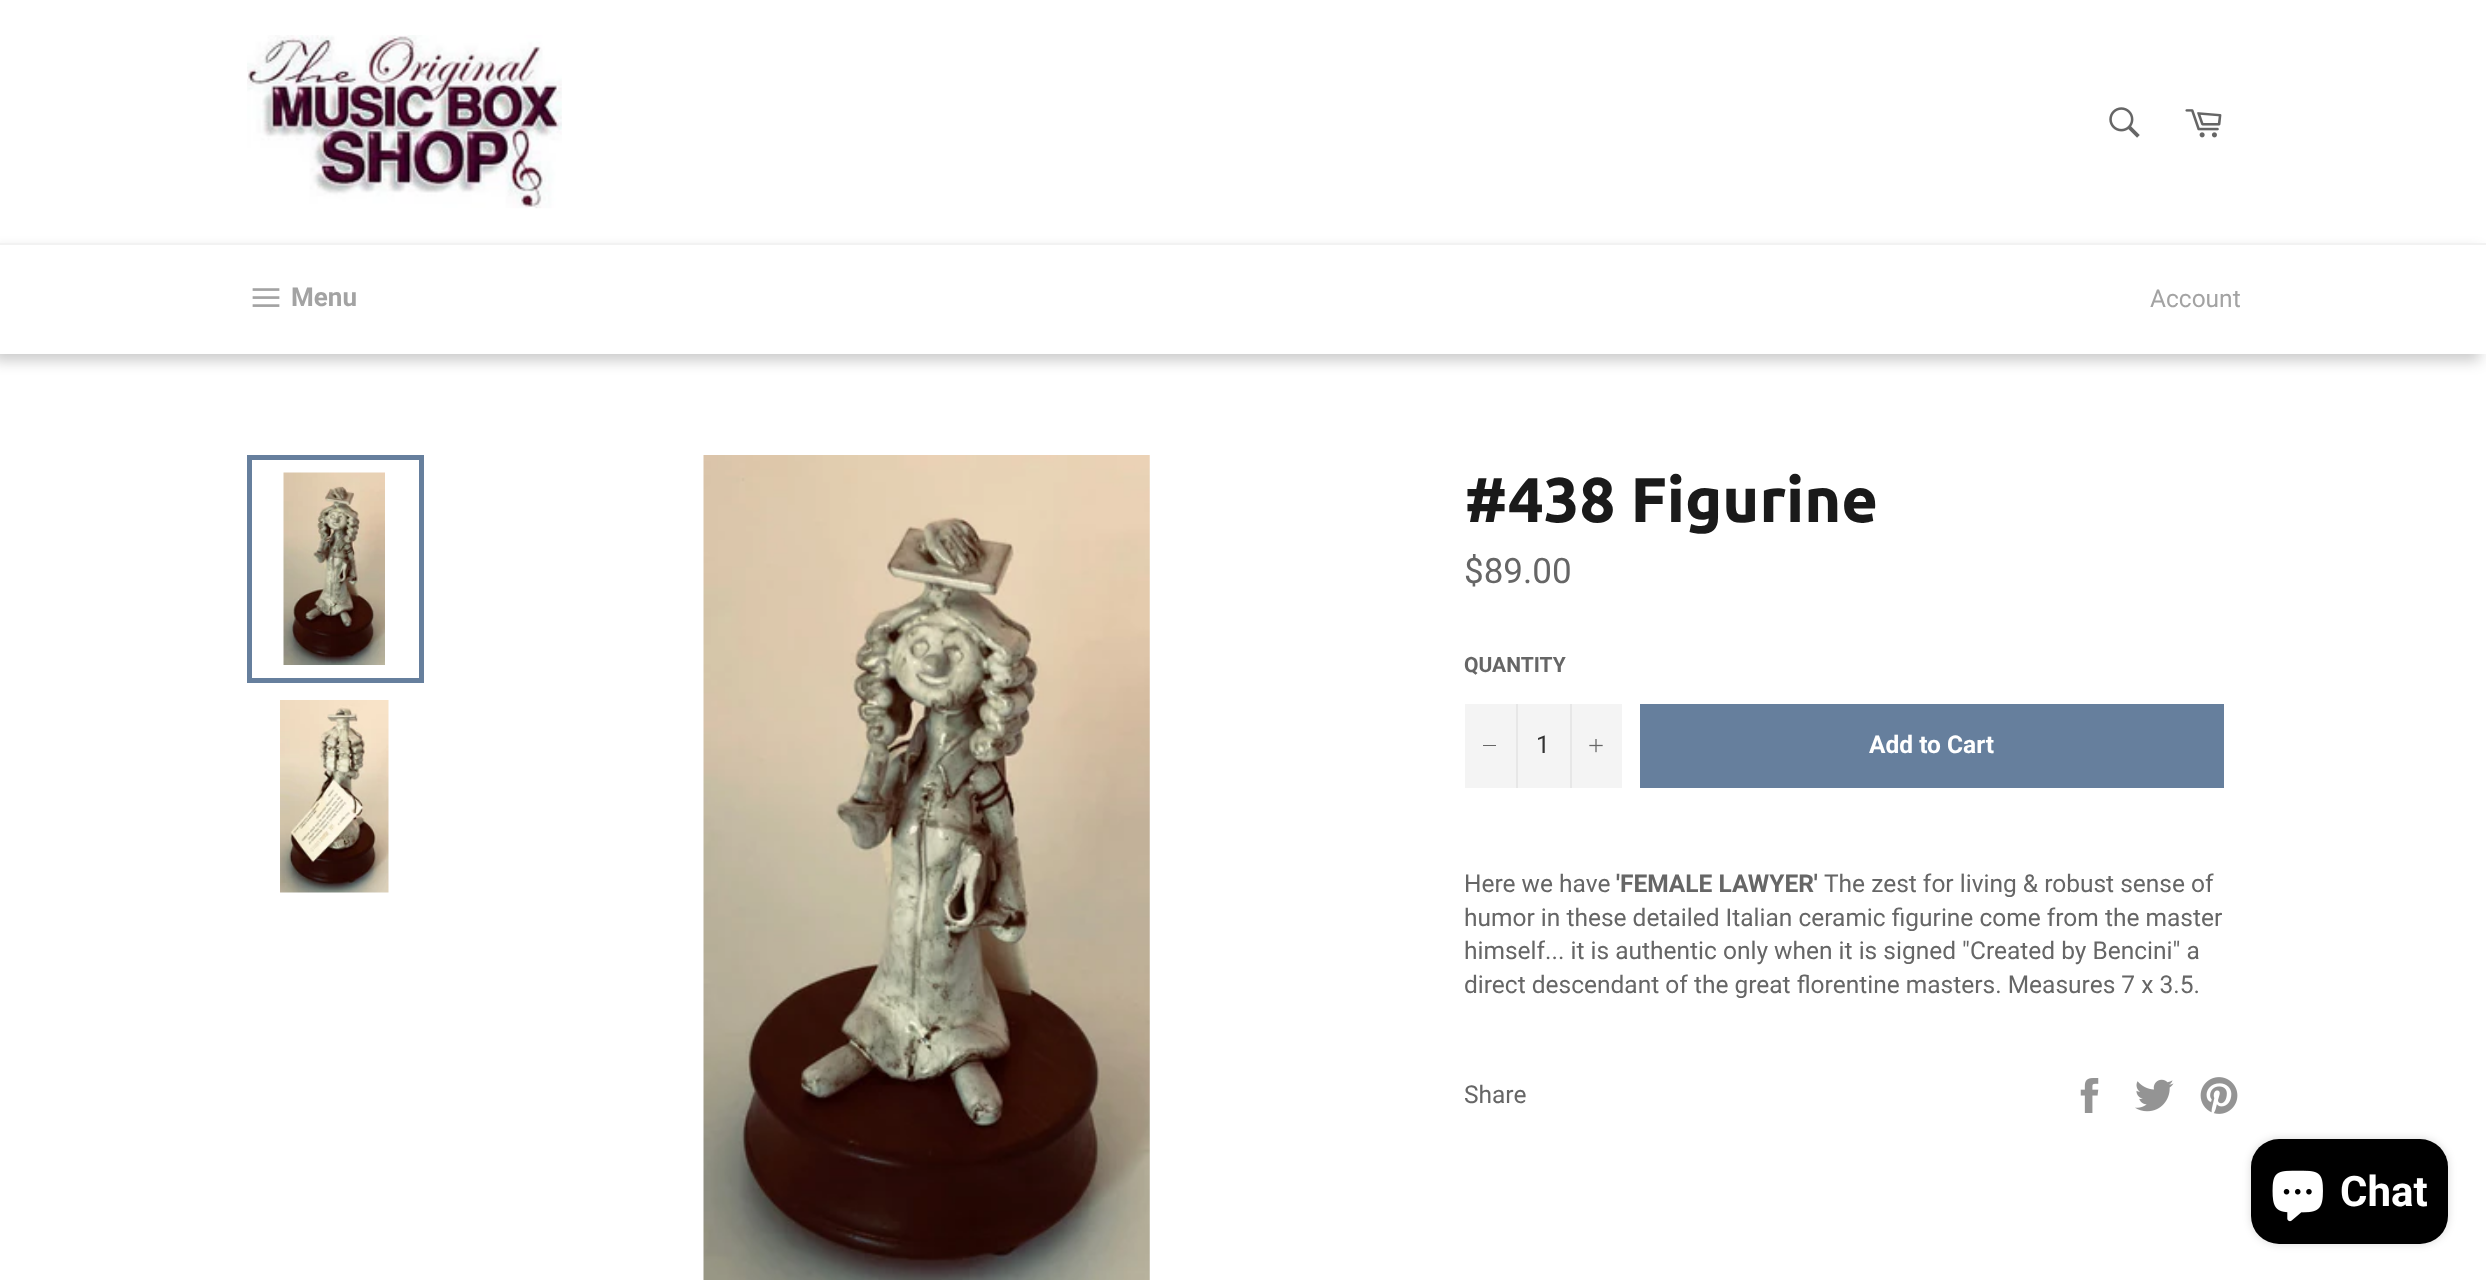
<?xml version="1.0" encoding="UTF-8"?>
<svg xmlns="http://www.w3.org/2000/svg" width="2486" height="1280">
    <defs>
        <filter id="blur1" x="-50%" y="-200%" width="200%" height="500%"><feGaussianBlur stdDeviation="7"/></filter>
        <filter id="blur2" x="-50%" y="-200%" width="200%" height="500%"><feGaussianBlur stdDeviation="4.5"/></filter>
    </defs>
    <rect width="100%" height="100%" fill="#FFFFFF"/>
    <image x="247" y="35" width="315" height="174" href="img_01.png"/>
    <image x="2109" y="107" width="31" height="31" href="img_02.png"/>
    <image x="2185" y="109" width="37" height="29" href="img_03.png"/>
    <rect x="-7" y="250" width="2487" height="111" fill="#000000" fill-opacity="0.2" filter="url(#blur1)"/>
    <rect x="0" y="245" width="2486" height="109" fill="#FFFFFF"/>
    <rect x="0" y="243" width="2486" height="2" fill="#F2F2F2"/>
    <image x="252" y="288" width="28" height="19" href="img_04.png"/>
    <text x="291" y="306" font-family="Roboto" font-size="26" font-weight="700" fill="#A3A3A3">Menu</text>
    <text x="2150" y="307" font-family="Roboto" font-size="24.5" fill="#A3A3A3">Account</text>
    <image x="283" y="472" width="102" height="193" href="img_05.png"/>
    <rect x="249.5" y="457.5" width="172" height="223" fill="none" stroke="#667F9D" stroke-width="5"/>
    <image x="280" y="700" width="109" height="193" href="img_06.png"/>
    <image x="703" y="455" width="447" height="825" href="img_07.png"/>
    <text x="1464" y="522" font-family="Ubuntu" font-size="63" font-weight="700" fill="#1A1A1A">#438 Figurine</text>
    <text x="1464" y="583" font-family="Roboto" font-size="35" fill="#666666">$89.00</text>
    <text x="1464" y="672" font-family="Roboto" font-size="21" font-weight="700" fill="#666666">QUANTITY</text>
    <rect x="1465" y="704" width="157" height="84" fill="#F4F4F4"/>
    <rect x="1516" y="704" width="2" height="84" fill="#E7E7E7"/>
    <rect x="1483" y="745" width="13" height="1" fill="#666666"/>
    <text x="1536" y="753" font-family="Roboto" font-size="24.5" fill="#333333">1</text>
    <rect x="1570" y="704" width="2" height="84" fill="#E7E7E7"/>
    <image x="1589" y="739" width="14" height="14" href="img_08.png"/>
    <rect x="1640" y="704" width="584" height="84" fill="#667F9D"/>
    <text x="1869" y="753" font-family="Roboto" font-size="24.5" font-weight="700" fill="#FFFFFF">Add to Cart</text>
    <text x="1464" y="892" font-family="Roboto" font-size="24.5" fill="#666666">Here we have</text>
    <text x="1616" y="892" font-family="Roboto" font-size="24.5" font-weight="700" fill="#666666">'FEMALE LAWYER'</text>
    <text x="1824" y="892" font-family="Roboto" font-size="24.5" fill="#666666">The zest for living &amp; robust sense of</text>
    <text font-family="Roboto" font-size="24.5" fill="#666666">
        <tspan x="1464" y="926">humor in these detailed Italian ceramic figurine come from the master</tspan>
        <tspan x="1464" y="959">himself... it is authentic only when it is signed "Created by Bencini" a</tspan>
        <tspan x="1464" y="993">direct descendant of the great florentine masters. Measures 7 x 3.5.</tspan>
    </text>
    <text x="1464" y="1103" font-family="Roboto" font-size="24.5" fill="#666666">Share</text>
    <image x="2080" y="1078" width="19" height="35" href="img_09.png"/>
    <image x="2135" y="1079" width="39" height="33" href="img_10.png"/>
    <image x="2200" y="1077" width="38" height="37" href="img_11.png"/>
    <rect x="2251" y="1139" width="197" height="105" rx="28" fill="#000000" fill-opacity="0.15" filter="url(#blur2)"/>
    <rect x="2251" y="1139" width="197" height="105" rx="28" fill="#000000"/>
    <image x="2272" y="1170" width="51" height="52" href="img_12.png"/>
    <text x="2340" y="1206" font-family="Roboto" font-size="42" font-weight="700" fill="#FFFFFF">Chat</text>
</svg>
